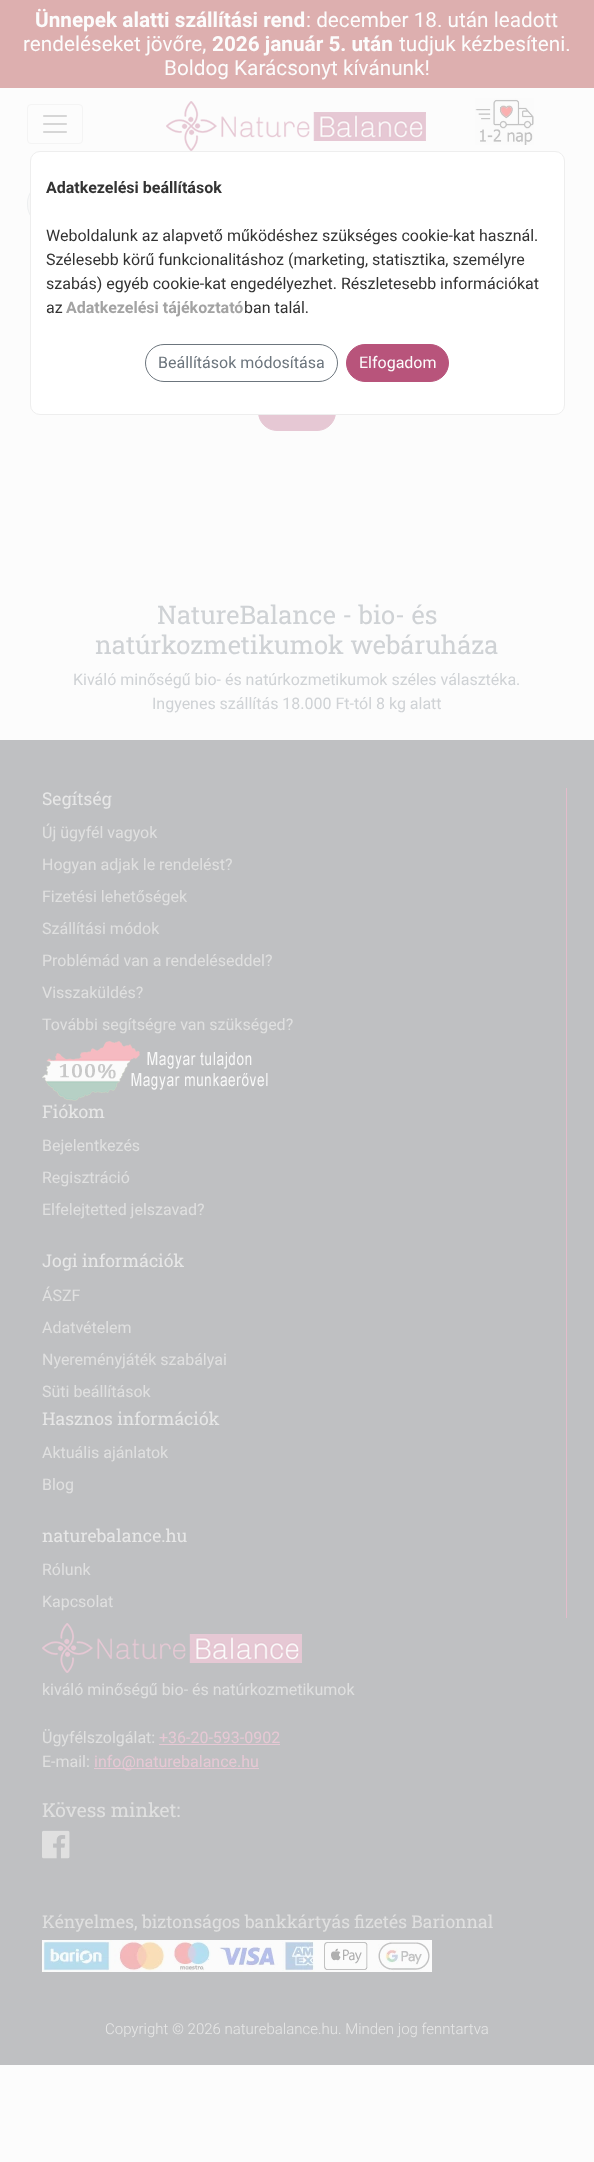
<?xml version="1.0" encoding="UTF-8"?>
<svg xmlns="http://www.w3.org/2000/svg" width="594" height="2162">
    <rect width="100%" height="100%" fill="#FCFCFC"/>
    <rect x="0" y="0" width="594" height="88" fill="#DDAFAF"/>
    <text x="35" y="27" font-family="Roboto" font-size="20.75" font-weight="700" fill="#FCFCFC">Ünnepek alatti szállítási rend</text>
    <text x="306" y="27" font-family="Roboto" font-size="20.75" fill="#FCFCFC">: december 18. után leadott</text>
    <text x="23" y="51" font-family="Roboto" font-size="20.75" fill="#FCFCFC">rendeléseket jövőre,</text>
    <text x="212" y="51" font-family="Roboto" font-size="20.75" font-weight="700" fill="#FCFCFC">2026 január 5. után</text>
    <text x="399" y="51" font-family="Roboto" font-size="20.75" fill="#FCFCFC">tudjuk kézbesíteni.</text>
    <text x="164" y="75" font-family="Roboto" font-size="20.75" fill="#FCFCFC">Boldog Karácsonyt kívánunk!</text>
    <rect x="27.5" y="104.5" width="55" height="39" rx="3.5" fill="none" stroke="#F4F4F4"/>
    <image x="43" y="115" width="24" height="18" href="img_01.png"/>
    <image x="166" y="101" width="260" height="50" href="img_02.png"/>
    <image x="475" y="98" width="59" height="47" href="img_03.png"/>
    <path d="M 51 180 H 350 V 228 H 51 C 37.5 228 27 217.5 27 204 C 27 190.5 37.5 180 51 180 Z" fill="#F8F8F8"/>
    <path d="M 51 180 H 350 V 228 H 51 C 38 228 27 217 27 204 C 27 191 38 180 51 180 Z M 51 181 H 350 V 227 H 51 C 38 227 28 217 28 204 C 28 191 38 181 51 181 Z" fill="#EDEFF0" fill-rule="evenodd"/>
    <rect x="258.5" y="393.5" width="77" height="37" rx="18.5" fill="#E6C8D4" stroke="#E6C8D4"/>
    <rect x="0" y="740" width="594" height="1325" fill="#BFC0C2"/>
    <rect x="30.5" y="151.5" width="534" height="263" rx="9.5" fill="#FFFFFF" stroke="#EEEEEE"/>
    <text x="46" y="193" font-family="Roboto" font-size="16" font-weight="700" fill="#333333">Adatkezelési beállítások</text>
    <text font-family="Roboto" font-size="16" fill="#333333">
        <tspan x="46" y="241">Weboldalunk az alapvető működéshez szükséges cookie-kat használ.</tspan>
        <tspan x="46" y="265">Szélesebb körű funkcionalitáshoz (marketing, statisztika, személyre</tspan>
        <tspan x="46" y="289">szabás) egyéb cookie-kat engedélyezhet. Részletesebb információkat</tspan>
        <tspan x="46" y="313">az</tspan>
    </text>
    <text x="66" y="313" font-family="Roboto" font-size="16" font-weight="700" fill="#A3A3A3">Adatkezelési tájékoztató</text>
    <text x="244" y="313" font-family="Roboto" font-size="16" fill="#333333">ban talál.</text>
    <rect x="145.5" y="344.5" width="192" height="37" rx="18.5" fill="none" stroke="#6C757D"/>
    <text x="158" y="368" font-family="Roboto" font-size="16" fill="#6C757D">Beállítások módosítása</text>
    <rect x="346.5" y="344.5" width="102" height="37" rx="18.5" fill="#B8547B" stroke="#B8547B"/>
    <text x="359" y="368" font-family="Roboto" font-size="16" fill="#FCFCFC">Elfogadom</text>
    <rect x="566" y="788" width="1" height="830" fill="#E3BCCB"/>
    <text x="42" y="805" font-family="Roboto Slab" font-size="17.6" fill="#E7E7E7">Segítség</text>
    <text x="42" y="838" font-family="Roboto" font-size="16" fill="#E0E0E0">Új ügyfél vagyok</text>
    <text x="42" y="870" font-family="Roboto" font-size="16" fill="#E0E0E0">Hogyan adjak le rendelést?</text>
    <text x="42" y="902" font-family="Roboto" font-size="16" fill="#E0E0E0">Fizetési lehetőségek</text>
    <text x="42" y="934" font-family="Roboto" font-size="16" fill="#E0E0E0">Szállítási módok</text>
    <text x="42" y="966" font-family="Roboto" font-size="16" fill="#E0E0E0">Problémád van a rendeléseddel?</text>
    <text x="42" y="998" font-family="Roboto" font-size="16" fill="#E0E0E0">Visszaküldés?</text>
    <text x="42" y="1030" font-family="Roboto" font-size="16" fill="#E0E0E0">További segítségre van szükséged?</text>
    <image x="42" y="1041" width="226" height="60" href="img_04.png"/>
    <text x="42" y="1118" font-family="Roboto Slab" font-size="17.6" fill="#E7E7E7">Fiókom</text>
    <text x="42" y="1151" font-family="Roboto" font-size="16" fill="#E0E0E0">Bejelentkezés</text>
    <text x="42" y="1183" font-family="Roboto" font-size="16" fill="#E0E0E0">Regisztráció</text>
    <text x="42" y="1215" font-family="Roboto" font-size="16" fill="#E0E0E0">Elfelejtetted jelszavad?</text>
    <text x="42" y="1267" font-family="Roboto Slab" font-size="17.6" fill="#E7E7E7">Jogi információk</text>
    <text x="42" y="1301" font-family="Roboto" font-size="16" fill="#E0E0E0">ÁSZF</text>
    <text x="42" y="1333" font-family="Roboto" font-size="16" fill="#E0E0E0">Adatvételem</text>
    <text x="42" y="1365" font-family="Roboto" font-size="16" fill="#E0E0E0">Nyereményjáték szabályai</text>
    <text x="42" y="1397" font-family="Roboto" font-size="16" fill="#E0E0E0">Süti beállítások</text>
    <text x="42" y="1425" font-family="Roboto Slab" font-size="17.6" fill="#E7E7E7">Hasznos információk</text>
    <text x="42" y="1458" font-family="Roboto" font-size="16" fill="#E0E0E0">Aktuális ajánlatok</text>
    <text x="42" y="1490" font-family="Roboto" font-size="16" fill="#E0E0E0">Blog</text>
    <text x="42" y="1542" font-family="Roboto Slab" font-size="17.6" fill="#E7E7E7">naturebalance.hu</text>
    <text x="42" y="1575" font-family="Roboto" font-size="16" fill="#E0E0E0">Rólunk</text>
    <text x="42" y="1607" font-family="Roboto" font-size="16" fill="#E0E0E0">Kapcsolat</text>
    <image x="42" y="1623" width="260" height="50" href="img_05.png"/>
    <text x="42" y="1695" font-family="Roboto" font-size="16" fill="#E0E0E0">kiváló minőségű bio- és natúrkozmetikumok</text>
    <text x="42" y="1743" font-family="Roboto" font-size="16" fill="#E0E0E0">Ügyfélszolgálat:</text>
    <text x="159" y="1743" font-family="Roboto" font-size="16" fill="#E6C8D4">+36-20-593-0902</text>
    <rect x="159" y="1744" width="121" height="1" fill="#E6C8D4"/>
    <text x="42" y="1767" font-family="Roboto" font-size="16" fill="#E0E0E0">E-mail:</text>
    <rect x="94" y="1768" width="165" height="1" fill="#E6C8D4"/>
    <text x="94" y="1767" font-family="Roboto" font-size="16" fill="#E6C8D4">info@naturebalance.hu</text>
    <text x="42" y="1817" font-family="Roboto Slab" font-size="19.25" fill="#E0E0E0">Kövess minket:</text>
    <image x="42" y="1830" width="28" height="29" href="img_06.png"/>
    <text x="42" y="1928" font-family="Roboto Slab" font-size="17.6" fill="#E0E0E0">Kényelmes, biztonságos bankkártyás fizetés Barionnal</text>
    <image x="42" y="1940" width="390" height="32" href="img_07.png"/>
    <text x="105" y="2034" font-family="Roboto" font-size="15" font-weight="300" fill="#E7E7E7">Copyright © 2026 naturebalance.hu. Minden jog fenntartva</text>
    <text x="157" y="624" font-family="Roboto Slab" font-size="25.6" fill="#CFD2D5">NatureBalance - bio- és</text>
    <text x="95" y="654" font-family="Roboto Slab" font-size="25.6" fill="#CFD2D5">natúrkozmetikumok webáruháza</text>
    <text x="73" y="685" font-family="Roboto" font-size="16" fill="#CFD2D5">Kiváló minőségű bio- és natúrkozmetikumok széles választéka.</text>
    <text x="152" y="709" font-family="Roboto" font-size="16" fill="#CFD2D5">Ingyenes szállítás 18.000 Ft-tól 8 kg alatt</text>
</svg>
